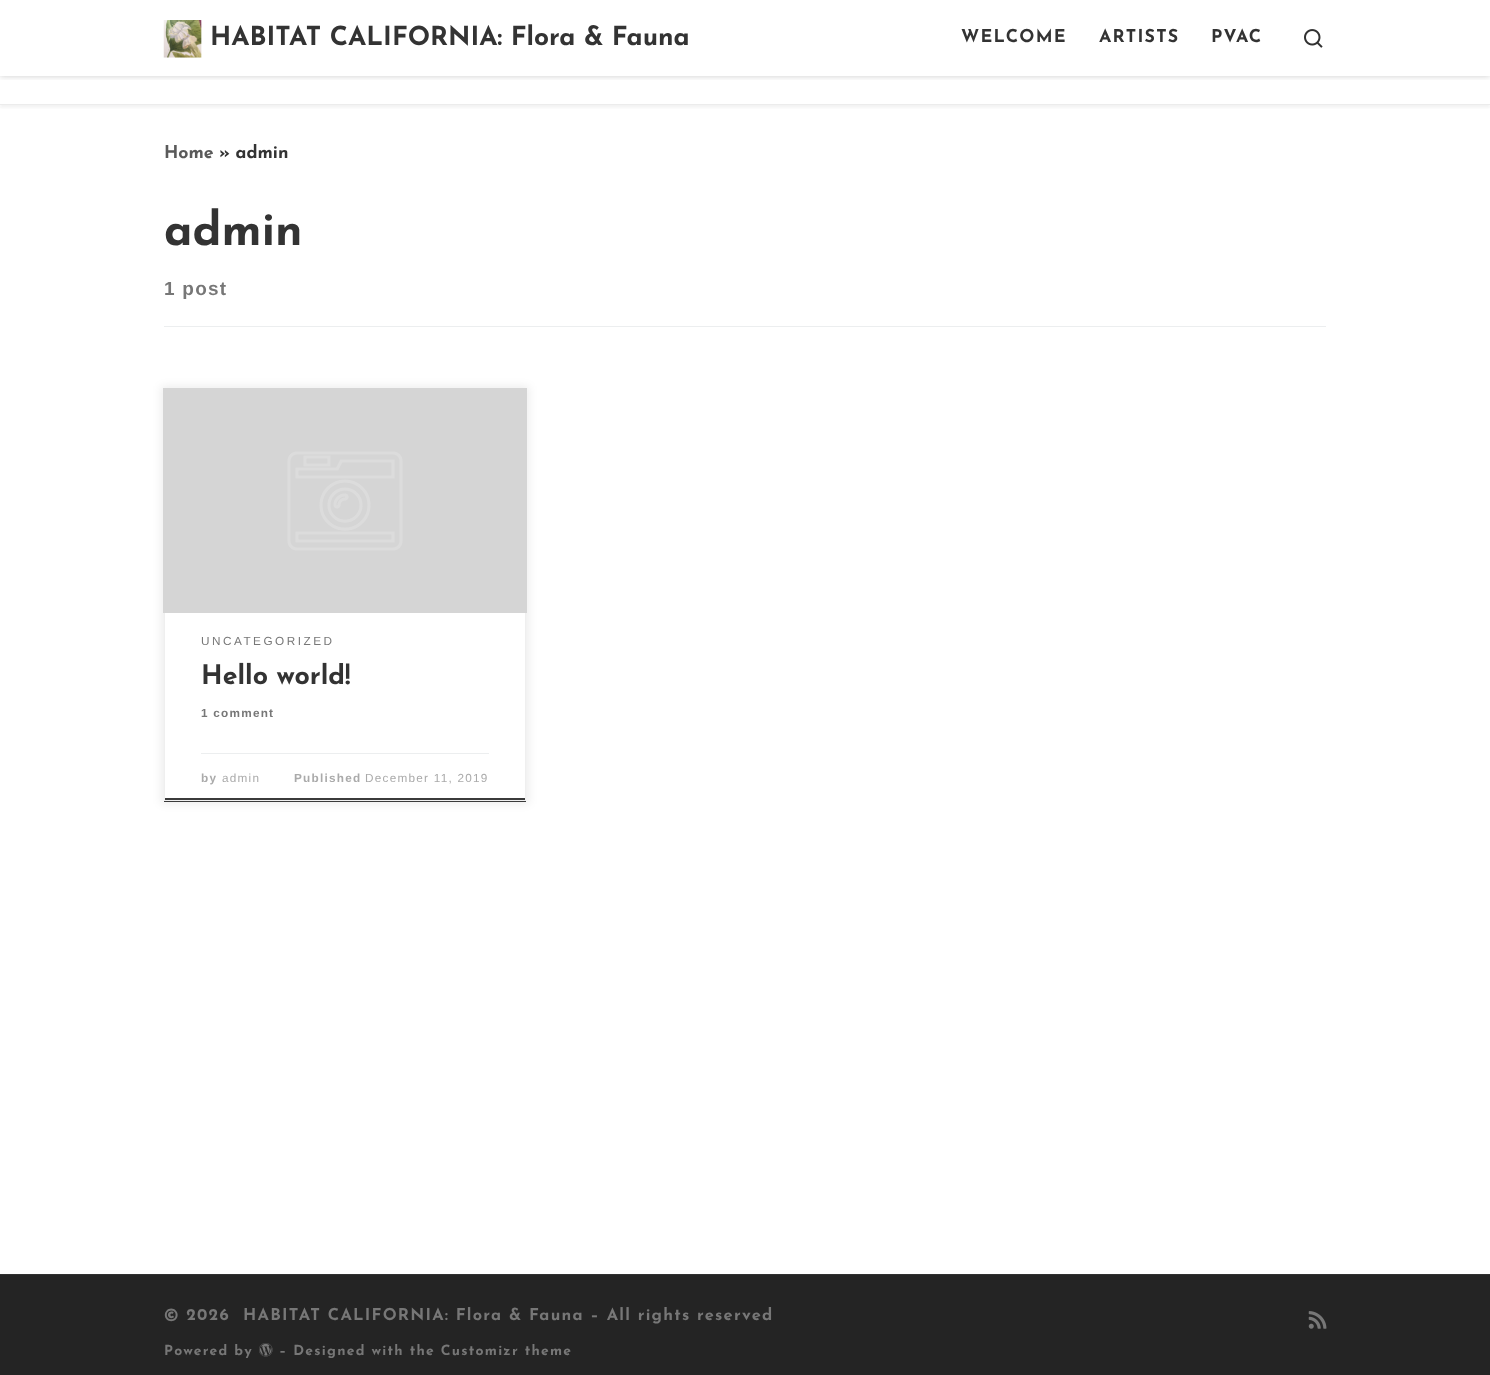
<?xml version="1.0" encoding="UTF-8"?>
<svg xmlns="http://www.w3.org/2000/svg" width="1490" height="1375">
    <defs>
        <clipPath id="clip1"><rect x="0" y="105" width="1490" height="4"/></clipPath>
        <filter id="blur1" x="-50%" y="-200%" width="200%" height="500%"><feGaussianBlur stdDeviation="1"/></filter>
        <clipPath id="clip2"><rect x="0" y="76" width="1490" height="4"/></clipPath>
        <filter id="blur2" x="-50%" y="-200%" width="200%" height="500%"><feGaussianBlur stdDeviation="3"/></filter>
        <clipPath id="clip3"><path d="M 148 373 H 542 V 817 H 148 Z M 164 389 H 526 V 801 H 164 Z" clip-rule="evenodd"/></clipPath>
        <filter id="blur3" x="-50%" y="-200%" width="200%" height="500%"><feGaussianBlur stdDeviation="4"/></filter>
    </defs>
    <rect width="100%" height="100%" fill="#FFFFFF"/>
    <g clip-path="url(#clip1)">
        <rect x="0" y="-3" width="1490" height="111" fill="#666666" fill-opacity="0.08" filter="url(#blur1)"/>
    </g>
    <rect x="0" y="104" width="1490" height="1" fill="#ECECEC"/>
    <g clip-path="url(#clip2)">
        <rect x="0" y="0" width="1490" height="76" fill="#000000" fill-opacity="0.2" filter="url(#blur2)"/>
    </g>
    <image x="163" y="20" width="39" height="38" href="img_01.png"/>
    <text x="210" y="45" font-family="Josefin Sans" font-size="26.25" font-weight="100" fill="#333333">HABITAT CALIFORNIA: Flora &amp; Fauna</text>
    <text x="961" y="42" font-family="Josefin Sans" font-size="17.75" font-weight="100" letter-spacing="1.25" fill="#333333">WELCOME</text>
    <text x="1099" y="42" font-family="Josefin Sans" font-size="17.75" font-weight="100" letter-spacing="1.25" fill="#333333">ARTISTS</text>
    <text x="1211" y="42" font-family="Josefin Sans" font-size="17.75" font-weight="100" letter-spacing="1.25" fill="#333333">PVAC</text>
    <image x="1304" y="29" width="19" height="19" href="img_02.png"/>
    <text x="164" y="158" font-family="Josefin Sans" font-size="17.75" font-weight="100" fill="#5A5A5A">Home</text>
    <text x="219" y="158" font-family="Josefin Sans" font-size="17.75" font-weight="100" fill="#333333">» admin</text>
    <text x="164" y="245" font-family="Josefin Sans" font-size="46.5" font-weight="100" fill="#333333">admin</text>
    <text x="164" y="295" font-family="Liberation Sans" font-size="19" font-weight="700" letter-spacing="1.25" fill="#777777">1 post</text>
    <rect x="164" y="326" width="1162" height="1" fill="#ECEEEF"/>
    <g clip-path="url(#clip3)">
        <rect x="161" y="386" width="368" height="418" fill="#000000" fill-opacity="0.07" filter="url(#blur3)"/>
    </g>
    <rect x="164" y="798" width="362" height="4" fill="#3B3B3B"/>
    <rect x="164.5" y="389.5" width="361" height="411" fill="none" stroke="#EFEFEF"/>
    <rect x="163" y="388" width="364" height="225" fill="#D5D5D5"/>
    <image x="287" y="451" width="116" height="100" href="img_03.png"/>
    <text x="201" y="645" font-family="Liberation Sans" font-size="11.75" letter-spacing="2.5" fill="#777777">UNCATEGORIZED</text>
    <text x="201" y="684" font-family="Josefin Sans" font-size="26.75" font-weight="100" fill="#333333">Hello world!</text>
    <text x="201" y="717" font-family="Liberation Sans" font-size="11.75" font-weight="700" letter-spacing="1.25" fill="#777777">1 comment</text>
    <rect x="201" y="753" width="288" height="1" fill="#ECEEEF"/>
    <text x="201" y="782" font-family="Liberation Sans" font-size="11.75" font-weight="700" letter-spacing="1.25" fill="#AAAAAA">by</text>
    <text x="222" y="782" font-family="Liberation Sans" font-size="11.75" letter-spacing="1.25" fill="#AAAAAA">admin</text>
    <text x="294" y="782" font-family="Liberation Sans" font-size="11.75" font-weight="700" letter-spacing="1.25" fill="#AAAAAA">Published</text>
    <text x="365" y="782" font-family="Liberation Sans" font-size="11.75" letter-spacing="1.25" fill="#AAAAAA">December 11, 2019</text>
    <rect x="0" y="1274" width="1490" height="1" fill="#313131"/>
    <rect x="0" y="1275" width="1490" height="100" fill="#242424"/>
    <text x="164" y="1320" font-family="Josefin Sans" font-size="16.4" font-weight="100" letter-spacing="1.25" fill="#777777">© 2026</text>
    <text x="243" y="1320" font-family="Josefin Sans" font-size="16.4" font-weight="100" letter-spacing="1.25" fill="#777777">HABITAT CALIFORNIA: Flora &amp; Fauna – All rights reserved</text>
    <text x="164" y="1355" font-family="Josefin Sans" font-size="14" font-weight="100" letter-spacing="1.25" fill="#777777">Powered by</text>
    <image x="259" y="1343" width="14" height="14" href="img_04.png"/>
    <text x="279" y="1355" font-family="Josefin Sans" font-size="14" font-weight="100" letter-spacing="1.25" fill="#777777">– Designed with the Customizr theme</text>
    <image x="1308" y="1311" width="19" height="18" href="img_05.png"/>
</svg>
